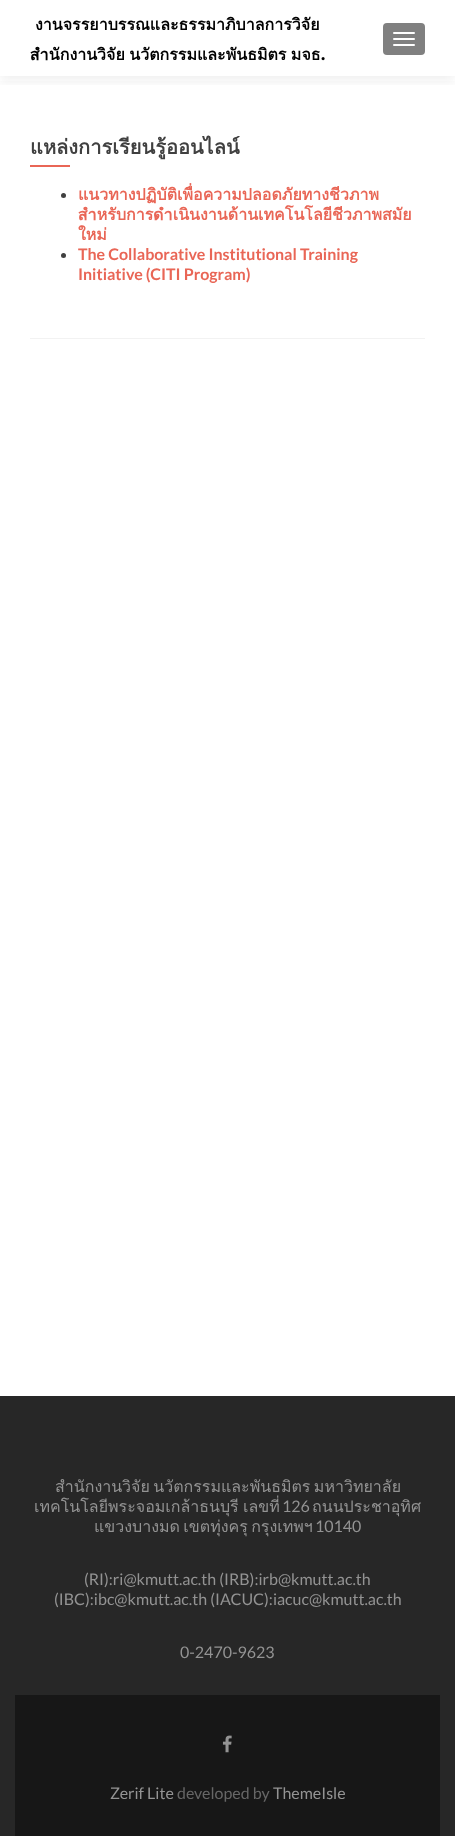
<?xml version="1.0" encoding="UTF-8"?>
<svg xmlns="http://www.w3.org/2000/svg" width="455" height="1836">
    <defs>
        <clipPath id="clip1"><rect x="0" y="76" width="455" height="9"/></clipPath>
        <filter id="blur1" x="-50%" y="-200%" width="200%" height="500%"><feGaussianBlur stdDeviation="5.5"/></filter>
    </defs>
    <rect width="100%" height="100%" fill="#FFFFFF"/>
    <g clip-path="url(#clip1)">
        <rect x="0" y="5" width="455" height="76" fill="#323232" fill-opacity="0.08" filter="url(#blur1)"/>
    </g>
    <text x="35" y="30" font-family="Loma" font-size="16" font-weight="700" fill="#000000">งานจรรยาบรรณและธรรมาภิบาลการวิจัย</text>
    <text x="30" y="60" word-spacing="-1" font-family="Loma" font-size="16" font-weight="700" fill="#000000">สำนักงานวิจัย นวัตกรรมและพันธมิตร มจธ</text>
    <text x="321" y="60" font-family="Montserrat" font-size="16" font-weight="700" fill="#000000">.</text>
    <rect x="383" y="23" width="42" height="32" rx="4" fill="#808080"/>
    <rect x="393" y="32" width="22" height="2" rx="1" fill="#FFFFFF"/>
    <rect x="393" y="38" width="22" height="2" rx="1" fill="#FFFFFF"/>
    <rect x="393" y="44" width="22" height="2" rx="1" fill="#FFFFFF"/>
    <rect x="30" y="338" width="395" height="1" fill="#F2F2F2"/>
    <text x="30" y="154" font-family="Loma" font-size="20" font-weight="700" fill="#404040">แหล่งการเรียนรู้ออนไลน์</text>
    <rect x="30" y="165" width="40" height="2" fill="#E96656"/>
    <circle cx="63.5" cy="195.5" r="2.5" fill="#404040"/>
    <text font-family="Loma" font-size="16" font-weight="700" fill="#E96656">
        <tspan x="78" y="200">แนวทางปฏิบัติเพื่อความปลอดภัยทางชีวภาพ</tspan>
        <tspan x="78" y="220">สำหรับการดำเนินงานด้านเทคโนโลยีชีวภาพสมัย</tspan>
        <tspan x="78" y="240">ใหม่</tspan>
    </text>
    <circle cx="63.5" cy="255.5" r="2.5" fill="#404040"/>
    <text font-family="Lato" font-size="16" font-weight="700" fill="#E96656">
        <tspan x="78" y="260">The Collaborative Institutional Training</tspan>
        <tspan x="78" y="280">Initiative (CITI Program)</tspan>
    </text>
    <rect x="0" y="1396" width="455" height="440" fill="#272727"/>
    <text x="55" y="1492" word-spacing="-2" font-family="Loma" font-size="16" fill="#939393">สำนักงานวิจัย นวัตกรรมและพันธมิตร มหาวิทยาลัย</text>
    <text x="34" y="1512" word-spacing="-1" font-family="Loma" font-size="16" fill="#939393">เทคโนโลยีพระจอมเกล้าธนบุรี เลขที่</text>
    <text x="282" y="1512" font-family="Lato" font-size="16" fill="#939393">126</text>
    <text x="312" y="1512" font-family="Loma" font-size="16" fill="#939393">ถนนประชาอุทิศ</text>
    <text x="94" y="1532" word-spacing="-2" font-family="Loma" font-size="16" fill="#939393">แขวงบางมด เขตทุ่งครุ กรุงเทพฯ</text>
    <text x="315" y="1532" font-family="Lato" font-size="16" fill="#939393">10140</text>
    <text x="84" y="1585" font-family="Lato" font-size="16" fill="#939393">(RI):ri@kmutt.ac.th (IRB):irb@kmutt.ac.th</text>
    <text x="54" y="1605" font-family="Lato" font-size="16" fill="#939393">(IBC):ibc@kmutt.ac.th (IACUC):iacuc@kmutt.ac.th</text>
    <text x="180" y="1658" font-family="Lato" font-size="16" fill="#939393">0-2470-9623</text>
    <rect x="15" y="1695" width="425" height="141" fill="#171717"/>
    <image x="222" y="1735" width="10" height="18" href="img_01.png"/>
    <text x="110" y="1799" font-family="Lato" font-size="16" fill="#939393">Zerif Lite</text>
    <text x="177" y="1799" font-family="Lato" font-size="16" fill="#666666">developed by</text>
    <text x="273" y="1799" font-family="Lato" font-size="16" fill="#939393">ThemeIsle</text>
</svg>
